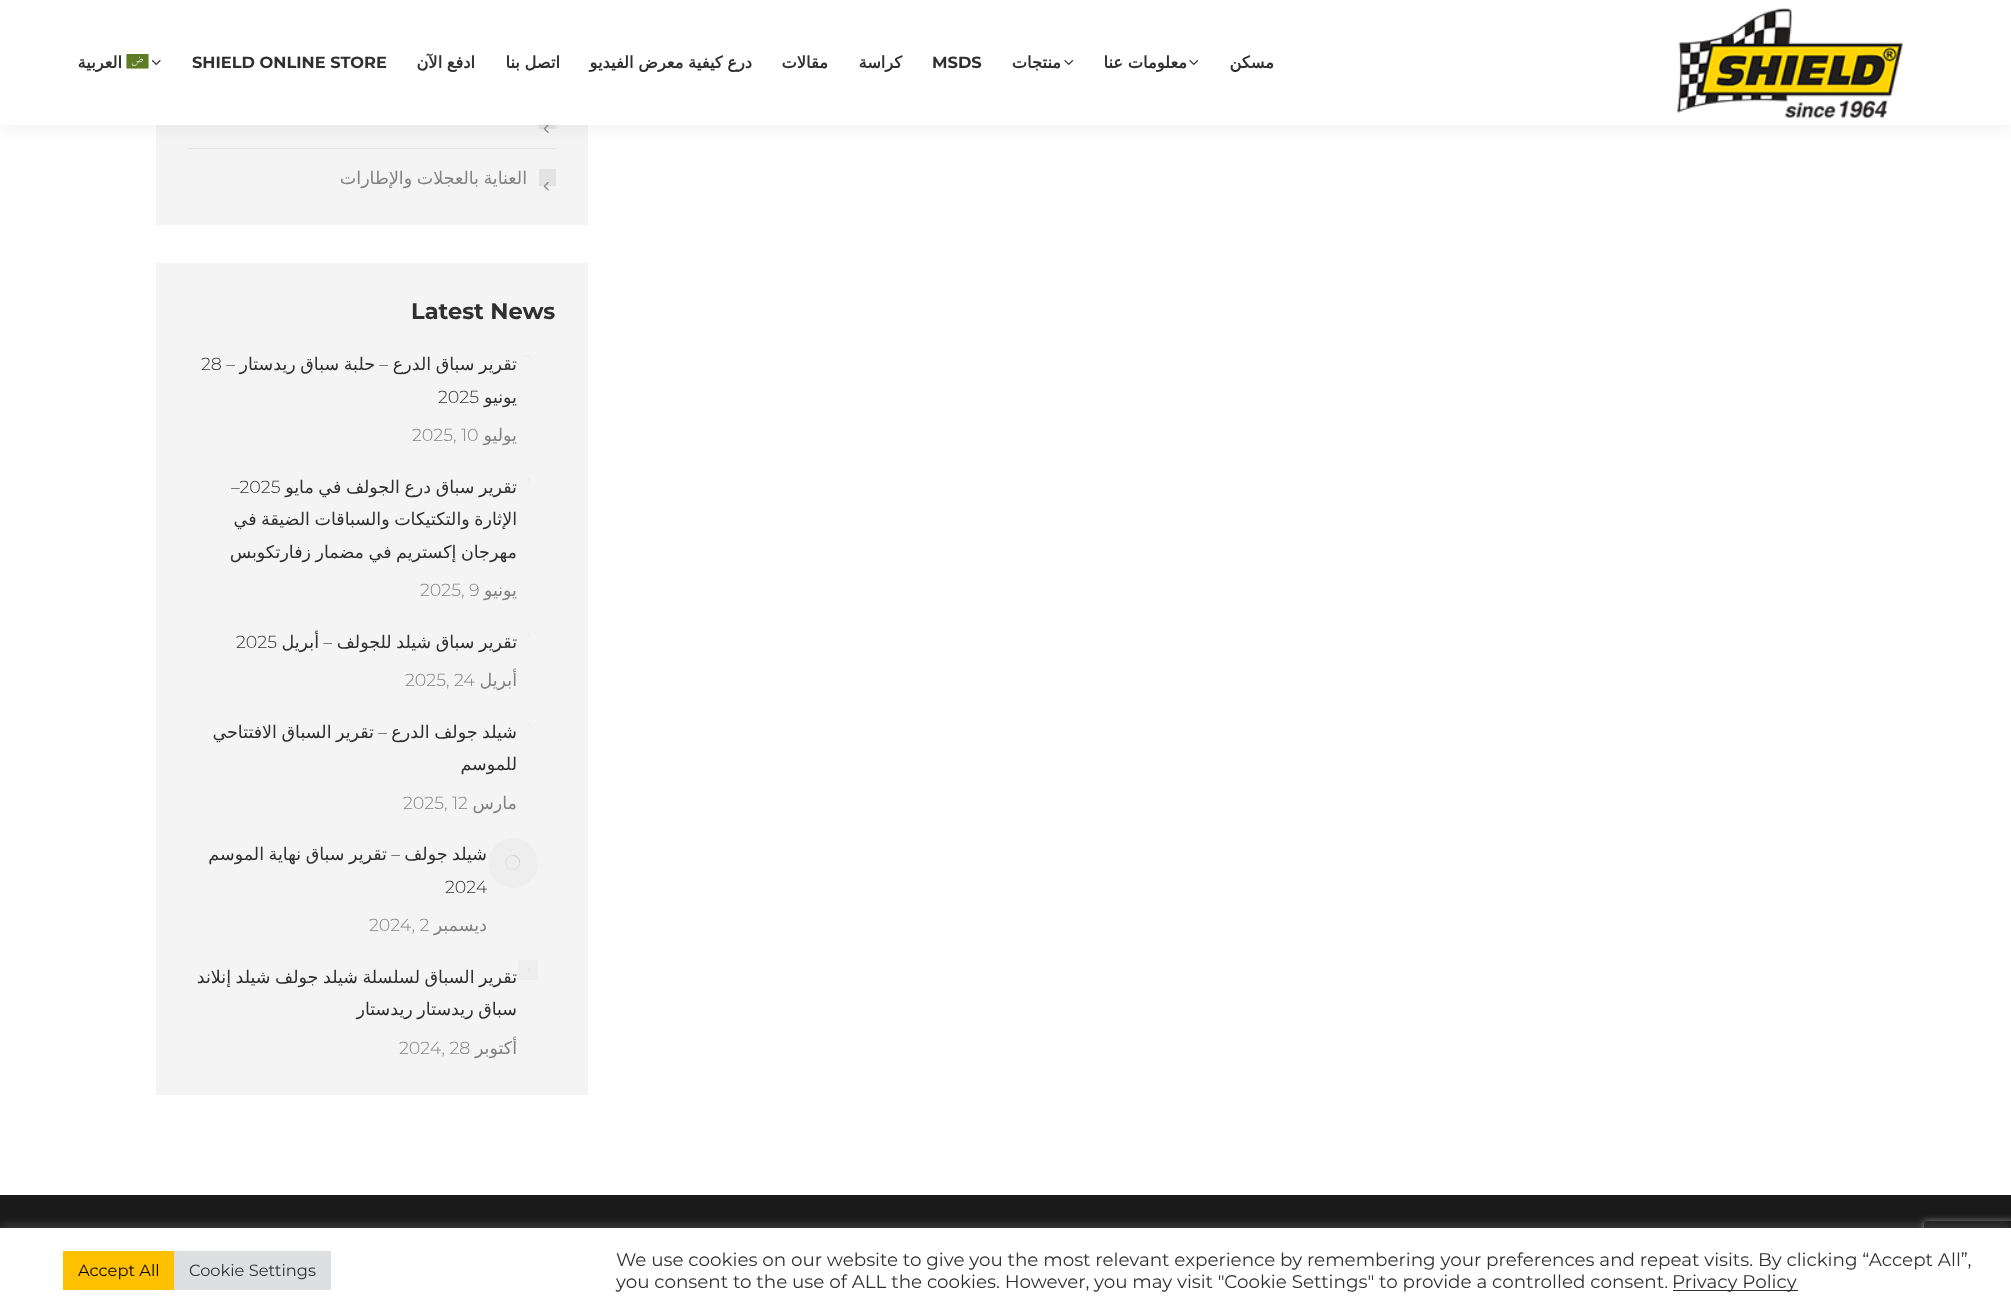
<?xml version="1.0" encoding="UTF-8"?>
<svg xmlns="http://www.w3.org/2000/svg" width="2011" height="1313">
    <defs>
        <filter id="blur1" x="-50%" y="-200%" width="200%" height="500%"><feGaussianBlur stdDeviation="9.5"/></filter>
        <clipPath id="clip1"><path d="M 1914 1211 H 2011 V 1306 H 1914 Z M 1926.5 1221 H 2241.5 C 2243 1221 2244 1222 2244 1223.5 V 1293.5 C 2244 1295 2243 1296 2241.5 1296 H 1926.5 C 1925 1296 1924 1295 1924 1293.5 V 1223.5 C 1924 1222 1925 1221 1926.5 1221 Z" clip-rule="evenodd"/></clipPath>
        <filter id="blur2" x="-50%" y="-200%" width="200%" height="500%"><feGaussianBlur stdDeviation="3"/></filter>
        <filter id="blur3" x="-50%" y="-200%" width="200%" height="500%"><feGaussianBlur stdDeviation="6"/></filter>
    </defs>
    <rect width="100%" height="100%" fill="#FFFFFF"/>
    <rect x="156" y="125" width="432" height="100" fill="#F4F4F4"/>
    <rect x="539" y="125" width="17" height="4" fill="#E3E3E3"/>
    <image x="543" y="125" width="6" height="8" href="img_05.png"/>
    <rect x="188" y="148" width="368" height="1" fill="#E3E3E3"/>
    <rect x="-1" y="-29" width="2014" height="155" fill="#000000" fill-opacity="0.07" filter="url(#blur1)"/>
    <rect x="0" y="0" width="2011" height="125" fill="#FFFFFF"/>
    <image x="1677" y="8" width="226" height="110" href="img_01.png"/>
    <text x="1274" y="68" font-family="DejaVu Sans" font-size="16.25" font-weight="700" direction="rtl" fill="#303030">مسكن</text>
    <image x="1189" y="60" width="10" height="5" href="img_02.png"/>
    <text x="1187" y="68" word-spacing="-0.5" font-family="DejaVu Sans" font-size="16.25" font-weight="700" direction="rtl" fill="#303030">معلومات عنا</text>
    <image x="1064" y="60" width="10" height="5" href="img_02.png"/>
    <text x="1061" y="68" font-family="DejaVu Sans" font-size="16.25" font-weight="700" direction="rtl" fill="#303030">منتجات</text>
    <text x="932" y="68" font-family="Montserrat" font-size="16.25" font-weight="700" fill="#303030">MSDS</text>
    <text x="902" y="68" font-family="DejaVu Sans" font-size="16.25" font-weight="700" direction="rtl" fill="#303030">كراسة</text>
    <text x="828" y="68" font-family="DejaVu Sans" font-size="16.25" font-weight="700" direction="rtl" fill="#303030">مقالات</text>
    <text x="752" y="68" word-spacing="-0.5" font-family="DejaVu Sans" font-size="16.25" font-weight="700" direction="rtl" fill="#303030">درع كيفية معرض الفيديو</text>
    <text x="560" y="68" word-spacing="-0.5" font-family="DejaVu Sans" font-size="16.25" font-weight="700" direction="rtl" fill="#303030">اتصل بنا</text>
    <text x="475" y="68" word-spacing="-0.5" font-family="DejaVu Sans" font-size="16.25" font-weight="700" direction="rtl" fill="#303030">ادفع الآن</text>
    <text x="192" y="68" font-family="Montserrat" font-size="16.25" font-weight="700" fill="#303030">SHIELD ONLINE STORE</text>
    <image x="151" y="60" width="10" height="5" href="img_03.png"/>
    <image x="126" y="54" width="23" height="15" href="img_04.png"/>
    <text x="122" y="68" font-family="DejaVu Sans" font-size="16.25" font-weight="700" direction="rtl" fill="#303030">العربية</text>
    <rect x="539" y="169" width="17" height="17" fill="#E3E3E3"/>
    <text x="527" y="184" word-spacing="-1" font-family="DejaVu Sans" font-size="17.5" direction="rtl" fill="#828282">العناية بالعجلات والإطارات</text>
    <image x="543" y="182" width="6" height="9" href="img_06.png"/>
    <rect x="156" y="263" width="432" height="832" fill="#F4F4F4"/>
    <text x="411" y="319" font-family="Montserrat" font-size="22.5" font-weight="700" fill="#303030">Latest News</text>
    <image x="524" y="355" width="6" height="5" href="img_07.png"/>
    <text x="517" y="370" word-spacing="-1" font-family="DejaVu Sans" font-size="17.5" direction="rtl" fill="#303030">تقرير سباق الدرع</text>
    <text x="388" y="370" font-family="Montserrat" font-size="17.5" font-weight="300" direction="rtl" fill="#303030">–</text>
    <text x="375" y="370" word-spacing="-1" font-family="DejaVu Sans" font-size="17.5" direction="rtl" fill="#303030">حلبة سباق ريدستار</text>
    <text x="235" y="370" font-family="Montserrat" font-size="17.5" font-weight="300" direction="rtl" fill="#303030">–</text>
    <text x="201" y="370" font-family="Montserrat" font-size="17.5" font-weight="300" fill="#303030">28</text>
    <text x="517" y="403" font-family="DejaVu Sans" font-size="17.5" direction="rtl" fill="#303030">يونيو</text>
    <text x="438" y="403" font-family="Montserrat" font-size="17.5" font-weight="300" fill="#303030">2025</text>
    <text x="517" y="441" font-family="DejaVu Sans" font-size="17.5" direction="rtl" fill="#828282">يوليو</text>
    <text x="412" y="441" font-family="Montserrat" font-size="17.5" font-weight="300" fill="#828282">2025, 10</text>
    <image x="524" y="478" width="6" height="5" href="img_08.png"/>
    <text x="517" y="493" word-spacing="-1" font-family="DejaVu Sans" font-size="17.5" direction="rtl" fill="#303030">تقرير سباق درع الجولف في مايو</text>
    <text x="231" y="493" font-family="Montserrat" font-size="17.5" font-weight="300" fill="#303030">–2025</text>
    <text font-family="DejaVu Sans" font-size="17.5" direction="rtl" fill="#303030">
        <tspan x="517" y="525" word-spacing="-1">الإثارة والتكتيكات والسباقات الضيقة في</tspan>
        <tspan x="517" y="558" word-spacing="-1">مهرجان إكستريم في مضمار زفارتكوبس</tspan>
    </text>
    <text x="517" y="596" font-family="DejaVu Sans" font-size="17.5" direction="rtl" fill="#828282">يونيو</text>
    <text x="420" y="596" font-family="Montserrat" font-size="17.5" font-weight="300" fill="#828282">2025, 9</text>
    <image x="524" y="633" width="6" height="5" href="img_08.png"/>
    <text x="517" y="648" word-spacing="-1" font-family="DejaVu Sans" font-size="17.5" direction="rtl" fill="#303030">تقرير سباق شيلد للجولف</text>
    <text x="332" y="648" font-family="Montserrat" font-size="17.5" font-weight="300" direction="rtl" fill="#303030">–</text>
    <text x="319" y="648" font-family="DejaVu Sans" font-size="17.5" direction="rtl" fill="#303030">أبريل</text>
    <text x="236" y="648" font-family="Montserrat" font-size="17.5" font-weight="300" fill="#303030">2025</text>
    <text x="517" y="686" font-family="DejaVu Sans" font-size="17.5" direction="rtl" fill="#828282">أبريل</text>
    <text x="405" y="686" font-family="Montserrat" font-size="17.5" font-weight="300" fill="#828282">2025, 24</text>
    <image x="524" y="723" width="6" height="5" href="img_08.png"/>
    <text x="517" y="738" word-spacing="-1" font-family="DejaVu Sans" font-size="17.5" direction="rtl" fill="#303030">شيلد جولف الدرع</text>
    <text x="387" y="738" font-family="Montserrat" font-size="17.5" font-weight="300" direction="rtl" fill="#303030">–</text>
    <text x="374" y="738" word-spacing="-1" font-family="DejaVu Sans" font-size="17.5" direction="rtl" fill="#303030">تقرير السباق الافتتاحي</text>
    <text x="517" y="770" font-family="DejaVu Sans" font-size="17.5" direction="rtl" fill="#303030">للموسم</text>
    <text x="517" y="809" font-family="DejaVu Sans" font-size="17.5" direction="rtl" fill="#828282">مارس</text>
    <text x="403" y="809" font-family="Montserrat" font-size="17.5" font-weight="300" fill="#828282">2025, 12</text>
    <circle cx="513" cy="863" r="25" fill="#EEEEEE"/>
    <image x="505" y="855" width="15" height="15" href="img_09.png"/>
    <text x="487" y="860" word-spacing="-1" font-family="DejaVu Sans" font-size="17.5" direction="rtl" fill="#303030">شيلد جولف</text>
    <text x="400" y="860" font-family="Montserrat" font-size="17.5" font-weight="300" direction="rtl" fill="#303030">–</text>
    <text x="387" y="860" word-spacing="-1" font-family="DejaVu Sans" font-size="17.5" direction="rtl" fill="#303030">تقرير سباق نهاية الموسم</text>
    <text x="445" y="893" font-family="Montserrat" font-size="17.5" font-weight="300" fill="#303030">2024</text>
    <text x="487" y="931" font-family="DejaVu Sans" font-size="17.5" direction="rtl" fill="#828282">ديسمبر</text>
    <text x="369" y="931" font-family="Montserrat" font-size="17.5" font-weight="300" fill="#828282">2024, 2</text>
    <rect x="518" y="960" width="20" height="20" fill="#828282" fill-opacity="0.05"/>
    <image x="528" y="968" width="2" height="5" href="img_10.png"/>
    <text font-family="DejaVu Sans" font-size="17.5" direction="rtl" fill="#303030">
        <tspan x="517" y="983" word-spacing="-1">تقرير السباق لسلسلة شيلد جولف شيلد إنلاند</tspan>
        <tspan x="517" y="1015" word-spacing="-1">سباق ريدستار ريدستار</tspan>
    </text>
    <text x="517" y="1054" font-family="DejaVu Sans" font-size="17.5" direction="rtl" fill="#828282">أكتوبر</text>
    <text x="399" y="1054" font-family="Montserrat" font-size="17.5" font-weight="300" fill="#828282">2024, 28</text>
    <rect x="0" y="1195" width="2011" height="33" fill="#191919"/>
    <g clip-path="url(#clip1)">
        <rect x="1924" y="1221" width="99" height="75" rx="2.5" fill="#808080" filter="url(#blur2)"/>
    </g>
    <rect x="0" y="1226" width="2011" height="87" fill="#ACABAB" fill-opacity="0.3" filter="url(#blur3)"/>
    <rect x="0" y="1228" width="2011" height="85" fill="#FFFFFF"/>
    <text x="616" y="1266" font-family="Montserrat" font-size="18.33" fill="#303030">We use cookies on our website to give you the most relevant experience by remembering your preferences and repeat visits. By clicking “Accept All”,</text>
    <rect x="1673" y="1290" width="125" height="1" fill="#303030"/>
    <text x="1672" y="1288" font-family="Montserrat" font-size="18.33" fill="#303030">Privacy Policy</text>
    <text x="616" y="1288" font-family="Montserrat" font-size="18.33" fill="#303030">you consent to the use of ALL the cookies. However, you may visit "Cookie Settings" to provide a controlled consent.</text>
    <rect x="174" y="1251" width="157" height="39" fill="#DEDFE0"/>
    <text x="189" y="1276" font-family="Montserrat" font-size="16.25" fill="#303030">Cookie Settings</text>
    <rect x="63" y="1251" width="111" height="39" fill="#FFC000"/>
    <text x="78" y="1276" font-family="Montserrat" font-size="16.25" fill="#000000">Accept All</text>
</svg>
